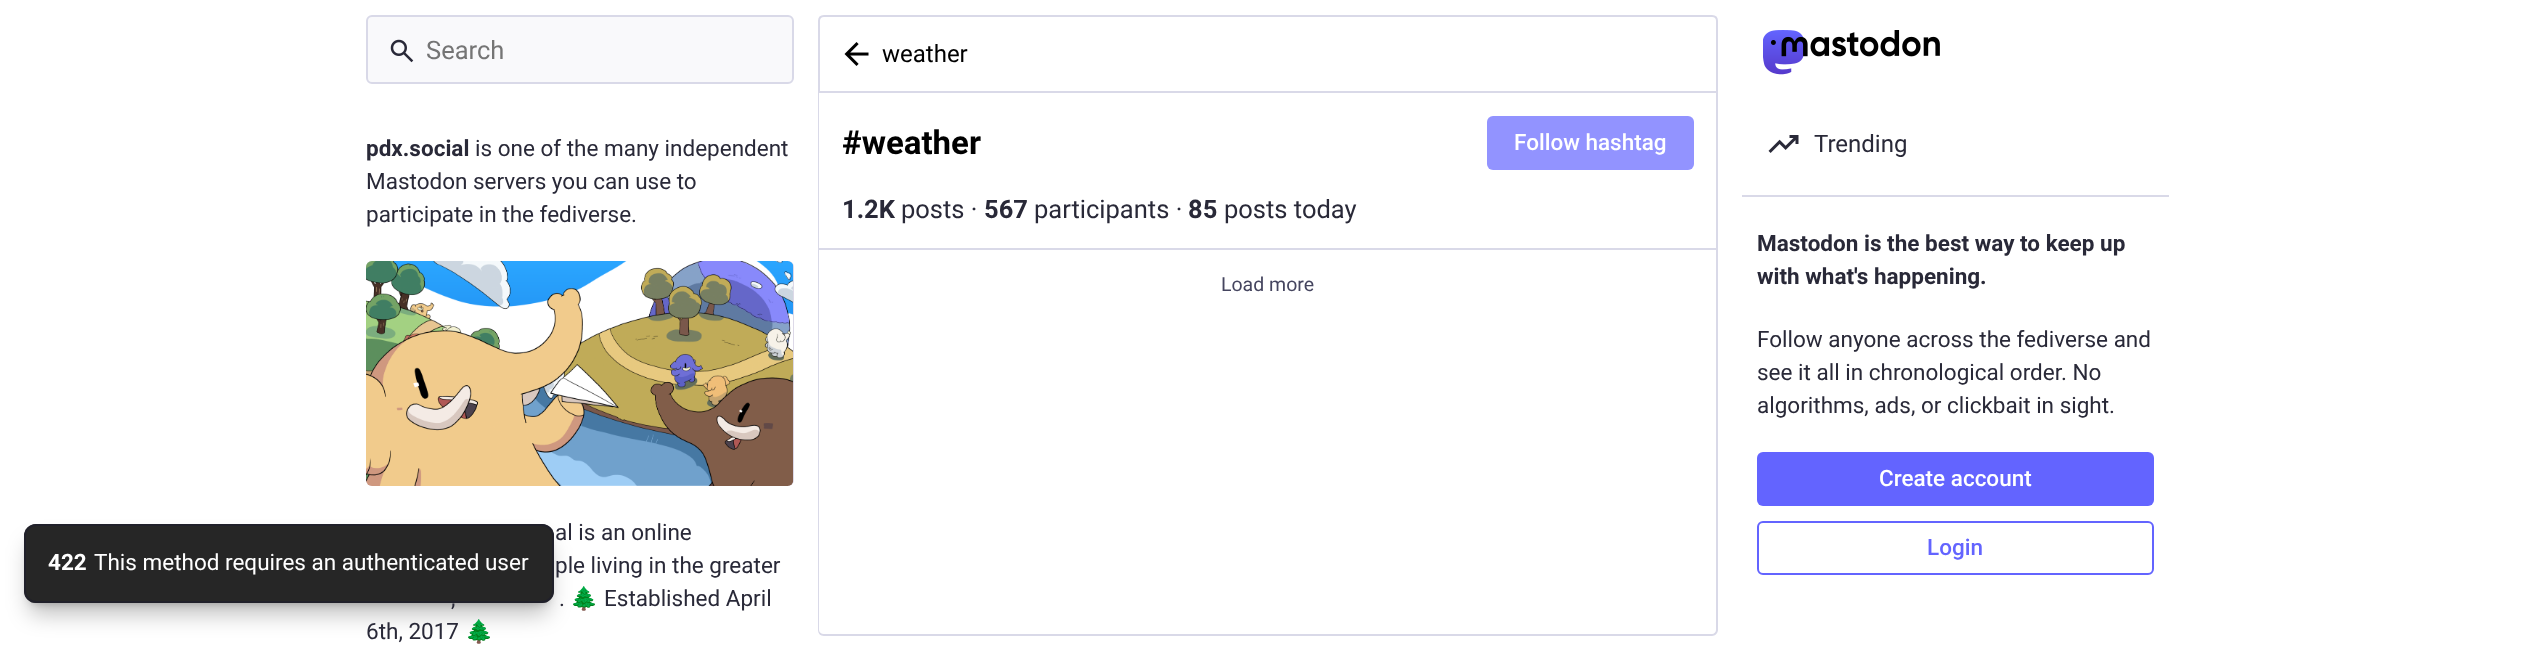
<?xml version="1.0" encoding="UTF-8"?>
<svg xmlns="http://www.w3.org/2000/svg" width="2534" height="651">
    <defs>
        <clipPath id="clip1"><path d="M 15 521 H 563 V 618 H 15 Z M 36 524 H 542 C 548.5 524 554 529.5 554 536 V 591 C 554 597.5 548.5 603 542 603 H 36 C 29.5 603 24 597.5 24 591 V 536 C 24 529.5 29.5 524 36 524 Z" clip-rule="evenodd"/></clipPath>
        <filter id="blur1" x="-50%" y="-200%" width="200%" height="500%"><feGaussianBlur stdDeviation="4.5"/></filter>
        <clipPath id="clip2"><path d="M 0 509 H 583 V 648 H 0 Z M 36 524 H 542 C 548.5 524 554 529.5 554 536 V 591 C 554 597.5 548.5 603 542 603 H 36 C 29.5 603 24 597.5 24 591 V 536 C 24 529.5 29.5 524 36 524 Z" clip-rule="evenodd"/></clipPath>
        <filter id="blur2" x="-50%" y="-200%" width="200%" height="500%"><feGaussianBlur stdDeviation="11"/></filter>
    </defs>
    <rect width="100%" height="100%" fill="#FFFFFF"/>
    <g clip-path="url(#clip1)">
        <rect x="30" y="536" width="518" height="67" rx="6" fill="#000000" fill-opacity="0.25" filter="url(#blur1)"/>
    </g>
    <g clip-path="url(#clip2)">
        <rect x="29" y="543" width="520" height="71" rx="8" fill="#000000" fill-opacity="0.25" filter="url(#blur2)"/>
    </g>
    <rect x="24" y="524" width="530" height="79" rx="12" fill="#000000" fill-opacity="0.85"/>
    <rect x="25" y="525" width="528" height="77" rx="11" fill="none" stroke="#20202C" stroke-opacity="0.85" stroke-width="2"/>
    <text x="48" y="570" font-family="Roboto" font-size="22.5" font-weight="700" fill="#FFFFFF">422</text>
    <text x="94" y="570" font-family="Roboto" font-size="22.5" fill="#FFFFFF">This method requires an authenticated user</text>
    <rect x="367" y="16" width="426" height="67" rx="5" fill="#F9F9FB" stroke="#D9D9E8" stroke-width="2"/>
    <image x="390" y="39" width="24" height="24" href="img_01.png"/>
    <text x="426" y="59" font-family="Roboto" font-size="25.5" fill="#757575">Search</text>
    <text x="366" y="156" font-family="Roboto" font-size="22.5" font-weight="700" fill="#292938">pdx.social</text>
    <text x="475" y="156" font-family="Roboto" font-size="22.5" fill="#292938">is one of the many independent</text>
    <text font-family="Roboto" font-size="22.5" fill="#292938">
        <tspan x="366" y="189">Mastodon servers you can use to</tspan>
        <tspan x="366" y="222">participate in the fediverse.</tspan>
    </text>
    <rect x="366" y="261" width="428" height="225" rx="6" fill="#DDD9E8"/>
    <image x="366" y="261" width="427" height="225" href="img_02.png"/>
    <text font-family="Roboto" font-size="22.5" fill="#292938">
        <tspan x="555" y="540">al is an online</tspan>
        <tspan x="555" y="573">ple living in the greater</tspan>
    </text>
    <text x="451" y="606" font-family="Roboto" font-size="22.5" fill="#292938">,</text>
    <text x="559" y="606" font-family="Roboto" font-size="22.5" fill="#292938">.</text>
    <text x="570" y="606" font-family="Noto Color Emoji" font-size="22.5" fill="#292938">🌲</text>
    <text x="604" y="606" font-family="Roboto" font-size="22.5" fill="#292938">Established April</text>
    <text x="366" y="639" font-family="Roboto" font-size="22.5" fill="#292938">6th, 2017</text>
    <text x="465" y="639" font-family="Noto Color Emoji" font-size="22.5" fill="#292938">🌲</text>
    <path d="M 824 16 H 1712 C 1715 16 1717 18 1717 21 V 92 H 819 V 21 C 819 18 821 16 824 16 Z" fill="none" stroke="#D9D9E8" stroke-width="2"/>
    <image x="844" y="42" width="25" height="24" href="img_03.png"/>
    <text x="882" y="62" font-family="Roboto" font-size="24" fill="#000000">weather</text>
    <path d="M 818 93 H 1718 V 630 C 1718 633 1715 636 1712 636 H 824 C 820 636 818 633 818 630 Z M 819 93 H 1716 V 630 C 1716 632 1714 634 1712 634 H 824 C 821 634 819 632 819 630 Z" fill="#D9D9E8" fill-rule="evenodd"/>
    <rect x="819" y="248" width="897" height="2" fill="#D9D9E8"/>
    <text x="842" y="154" font-family="Roboto" font-size="33" font-weight="700" fill="#000000">#weather</text>
    <rect x="1487" y="116" width="207" height="54" rx="6" fill="#9293FF"/>
    <text x="1514" y="150" font-family="Roboto" font-size="22.5" font-weight="500" fill="#FFFFFF">Follow hashtag</text>
    <text x="842" y="218" font-family="Roboto" font-size="25.5" font-weight="700" fill="#292938">1.2K</text>
    <text x="901" y="218" font-family="Roboto" font-size="25.5" fill="#292938">posts ·</text>
    <text x="984" y="218" font-family="Roboto" font-size="25.5" font-weight="700" fill="#292938">567</text>
    <text x="1034" y="218" font-family="Roboto" font-size="25.5" fill="#292938">participants ·</text>
    <text x="1188" y="218" font-family="Roboto" font-size="25.5" font-weight="700" fill="#292938">85</text>
    <text x="1224" y="218" font-family="Roboto" font-size="25.5" fill="#292938">posts today</text>
    <text x="1221" y="291" font-family="Roboto" font-size="19.5" fill="#45455F">Load more</text>
    <image x="1763" y="30" width="177" height="45" href="img_04.png"/>
    <image x="1768" y="135" width="31" height="18" href="img_05.png"/>
    <text x="1814" y="152" font-family="Roboto" font-size="24" fill="#292938">Trending</text>
    <rect x="1742" y="195" width="427" height="2" fill="#D9D9E8"/>
    <text font-family="Roboto" font-size="22.5" font-weight="700" fill="#292938">
        <tspan x="1757" y="251">Mastodon is the best way to keep up</tspan>
        <tspan x="1757" y="284">with what's happening.</tspan>
    </text>
    <text font-family="Roboto" font-size="22.5" fill="#292938">
        <tspan x="1757" y="347">Follow anyone across the fediverse and</tspan>
        <tspan x="1757" y="380">see it all in chronological order. No</tspan>
        <tspan x="1757" y="413">algorithms, ads, or clickbait in sight.</tspan>
    </text>
    <rect x="1757" y="452" width="397" height="54" rx="6" fill="#6364FF"/>
    <text x="1879" y="486" font-family="Roboto" font-size="22.5" font-weight="500" fill="#FFFFFF">Create account</text>
    <rect x="1758" y="522" width="395" height="52" rx="5" fill="none" stroke="#6364FF" stroke-width="2"/>
    <text x="1927" y="555" font-family="Roboto" font-size="22.5" font-weight="500" fill="#6364FF">Login</text>
</svg>
